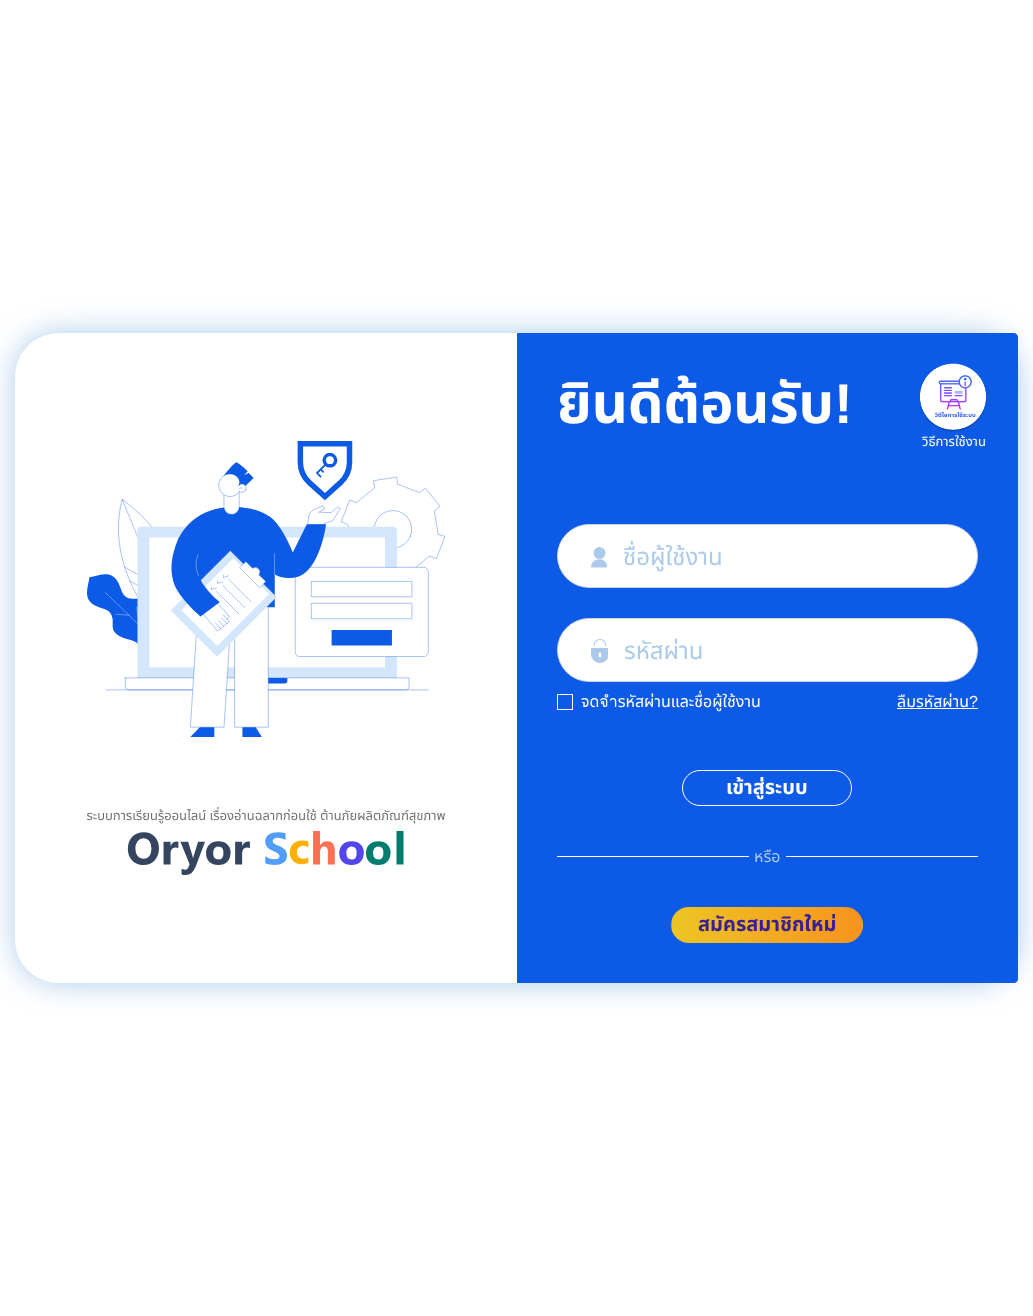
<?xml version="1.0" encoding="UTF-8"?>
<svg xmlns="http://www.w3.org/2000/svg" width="1033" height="1316">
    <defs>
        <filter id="blur1" x="-50%" y="-200%" width="200%" height="500%"><feGaussianBlur stdDeviation="15"/></filter>
        <clipPath id="clip1"><rect x="591" y="547" width="16" height="21"/></clipPath>
        <clipPath id="clip2"><rect x="671" y="907" width="192" height="36" rx="18"/></clipPath>
        <linearGradient id="g1" gradientUnits="userSpaceOnUse" x1="482" y1="925" x2="672" y2="925"><stop offset="0" stop-color="#EDC524"/><stop offset="1" stop-color="#F7931E"/></linearGradient>
        <linearGradient id="g2" gradientUnits="userSpaceOnUse" x1="672" y1="925" x2="862" y2="925"><stop offset="0" stop-color="#EDC524"/><stop offset="1" stop-color="#F7931E"/></linearGradient>
        <linearGradient id="g3" gradientUnits="userSpaceOnUse" x1="862" y1="925" x2="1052" y2="925"><stop offset="0" stop-color="#EDC524"/><stop offset="1" stop-color="#F7931E"/></linearGradient>
    </defs>
    <rect width="100%" height="100%" fill="#FFFFFF"/>
    <rect x="15" y="333" width="1003" height="650" rx="44" fill="#ACCBEA" filter="url(#blur1)"/>
    <path d="M 59 333 H 1018 V 979 C 1018 981 1016 983 1014 983 H 59 C 34.5 983 15 963.5 15 939 V 377 C 15 352.5 34.5 333 59 333 Z" fill="#FFFFFF"/>
    <image x="87" y="441" width="358" height="296" href="img_01.png"/>
    <image x="87" y="807" width="358" height="68" href="img_02.png"/>
    <path d="M 517 333 H 1014 C 1016 333 1018 335 1018 337 V 979 C 1018 981 1016 983 1014 983 H 517 Z" fill="#0C5AE5"/>
    <text x="557" y="423" font-family="Noto Sans Thai" font-size="56" font-weight="700" fill="#FFFFFF">ยินดีต้อนรับ</text>
    <text x="834" y="423" font-family="Liberation Sans" font-size="56" font-weight="700" fill="#FFFFFF">!</text>
    <rect x="557.5" y="524.5" width="420" height="63" rx="31.5" fill="#FFFFFF" stroke="#CED4DA"/>
    <circle cx="599.5" cy="553" r="6" fill="#ACCBEA"/>
    <g clip-path="url(#clip1)">
        <path d="M 607.5 567.5 H 591 C 591 556.5 607.5 556.5 607.5 567.5 Z" fill="#ACCBEA"/>
    </g>
    <text x="623" y="565" font-family="Noto Sans Thai" font-size="24" fill="#ACCBEA">ชื่อผู้ใช้งาน</text>
    <rect x="557.5" y="618.5" width="420" height="63" rx="31.5" fill="#FFFFFF" stroke="#CED4DA"/>
    <image x="591" y="639" width="17" height="24" href="img_03.png"/>
    <text x="624" y="659" font-family="Noto Sans Thai" font-size="24" fill="#ACCBEA">รหัสผ่าน</text>
    <rect x="557.5" y="694.5" width="15" height="15" fill="none" stroke="#FFFFFF"/>
    <text x="581" y="707" font-family="Noto Sans Thai" font-size="16" fill="#FFFFFF">จดจำรหัสผ่านและชื่อผู้ใช้งาน</text>
    <text x="897" y="707" font-family="Noto Sans Thai" font-size="16" fill="#FFFFFF">ลืมรหัสผ่าน</text>
    <text x="969" y="707" font-family="Liberation Sans" font-size="16" fill="#FFFFFF">?</text>
    <rect x="897" y="708" width="81" height="1" fill="#FFFFFF"/>
    <rect x="682.5" y="770.5" width="169" height="35" rx="17.5" fill="none" stroke="#FFFFFF"/>
    <text x="726" y="794" font-family="Noto Sans Thai" font-size="20" font-weight="700" fill="#FFFFFF">เข้าสู่ระบบ</text>
    <rect x="557" y="856" width="421" height="1" fill="#FFFFFF"/>
    <rect x="749" y="856" width="37" height="1" fill="#0C5AE5"/>
    <text x="754" y="862" font-family="Noto Sans Thai" font-size="16" fill="#ACCBEA">หรือ</text>
    <g clip-path="url(#clip2)">
        <rect x="671" y="919" width="1" height="12" fill="url(#g1)"/>
        <rect x="672" y="907" width="190" height="36" fill="url(#g2)"/>
        <rect x="862" y="919" width="1" height="12" fill="url(#g3)"/>
    </g>
    <text x="698" y="931" font-family="Noto Sans Thai" font-size="20" font-weight="700" fill="#381F93">สมัครสมาชิกใหม่</text>
    <image x="919" y="363" width="68" height="69" href="img_04.png"/>
    <text x="922" y="446" font-family="Noto Sans Thai" font-size="13" fill="#FFFFFF">วิธีการใช้งาน</text>
</svg>
